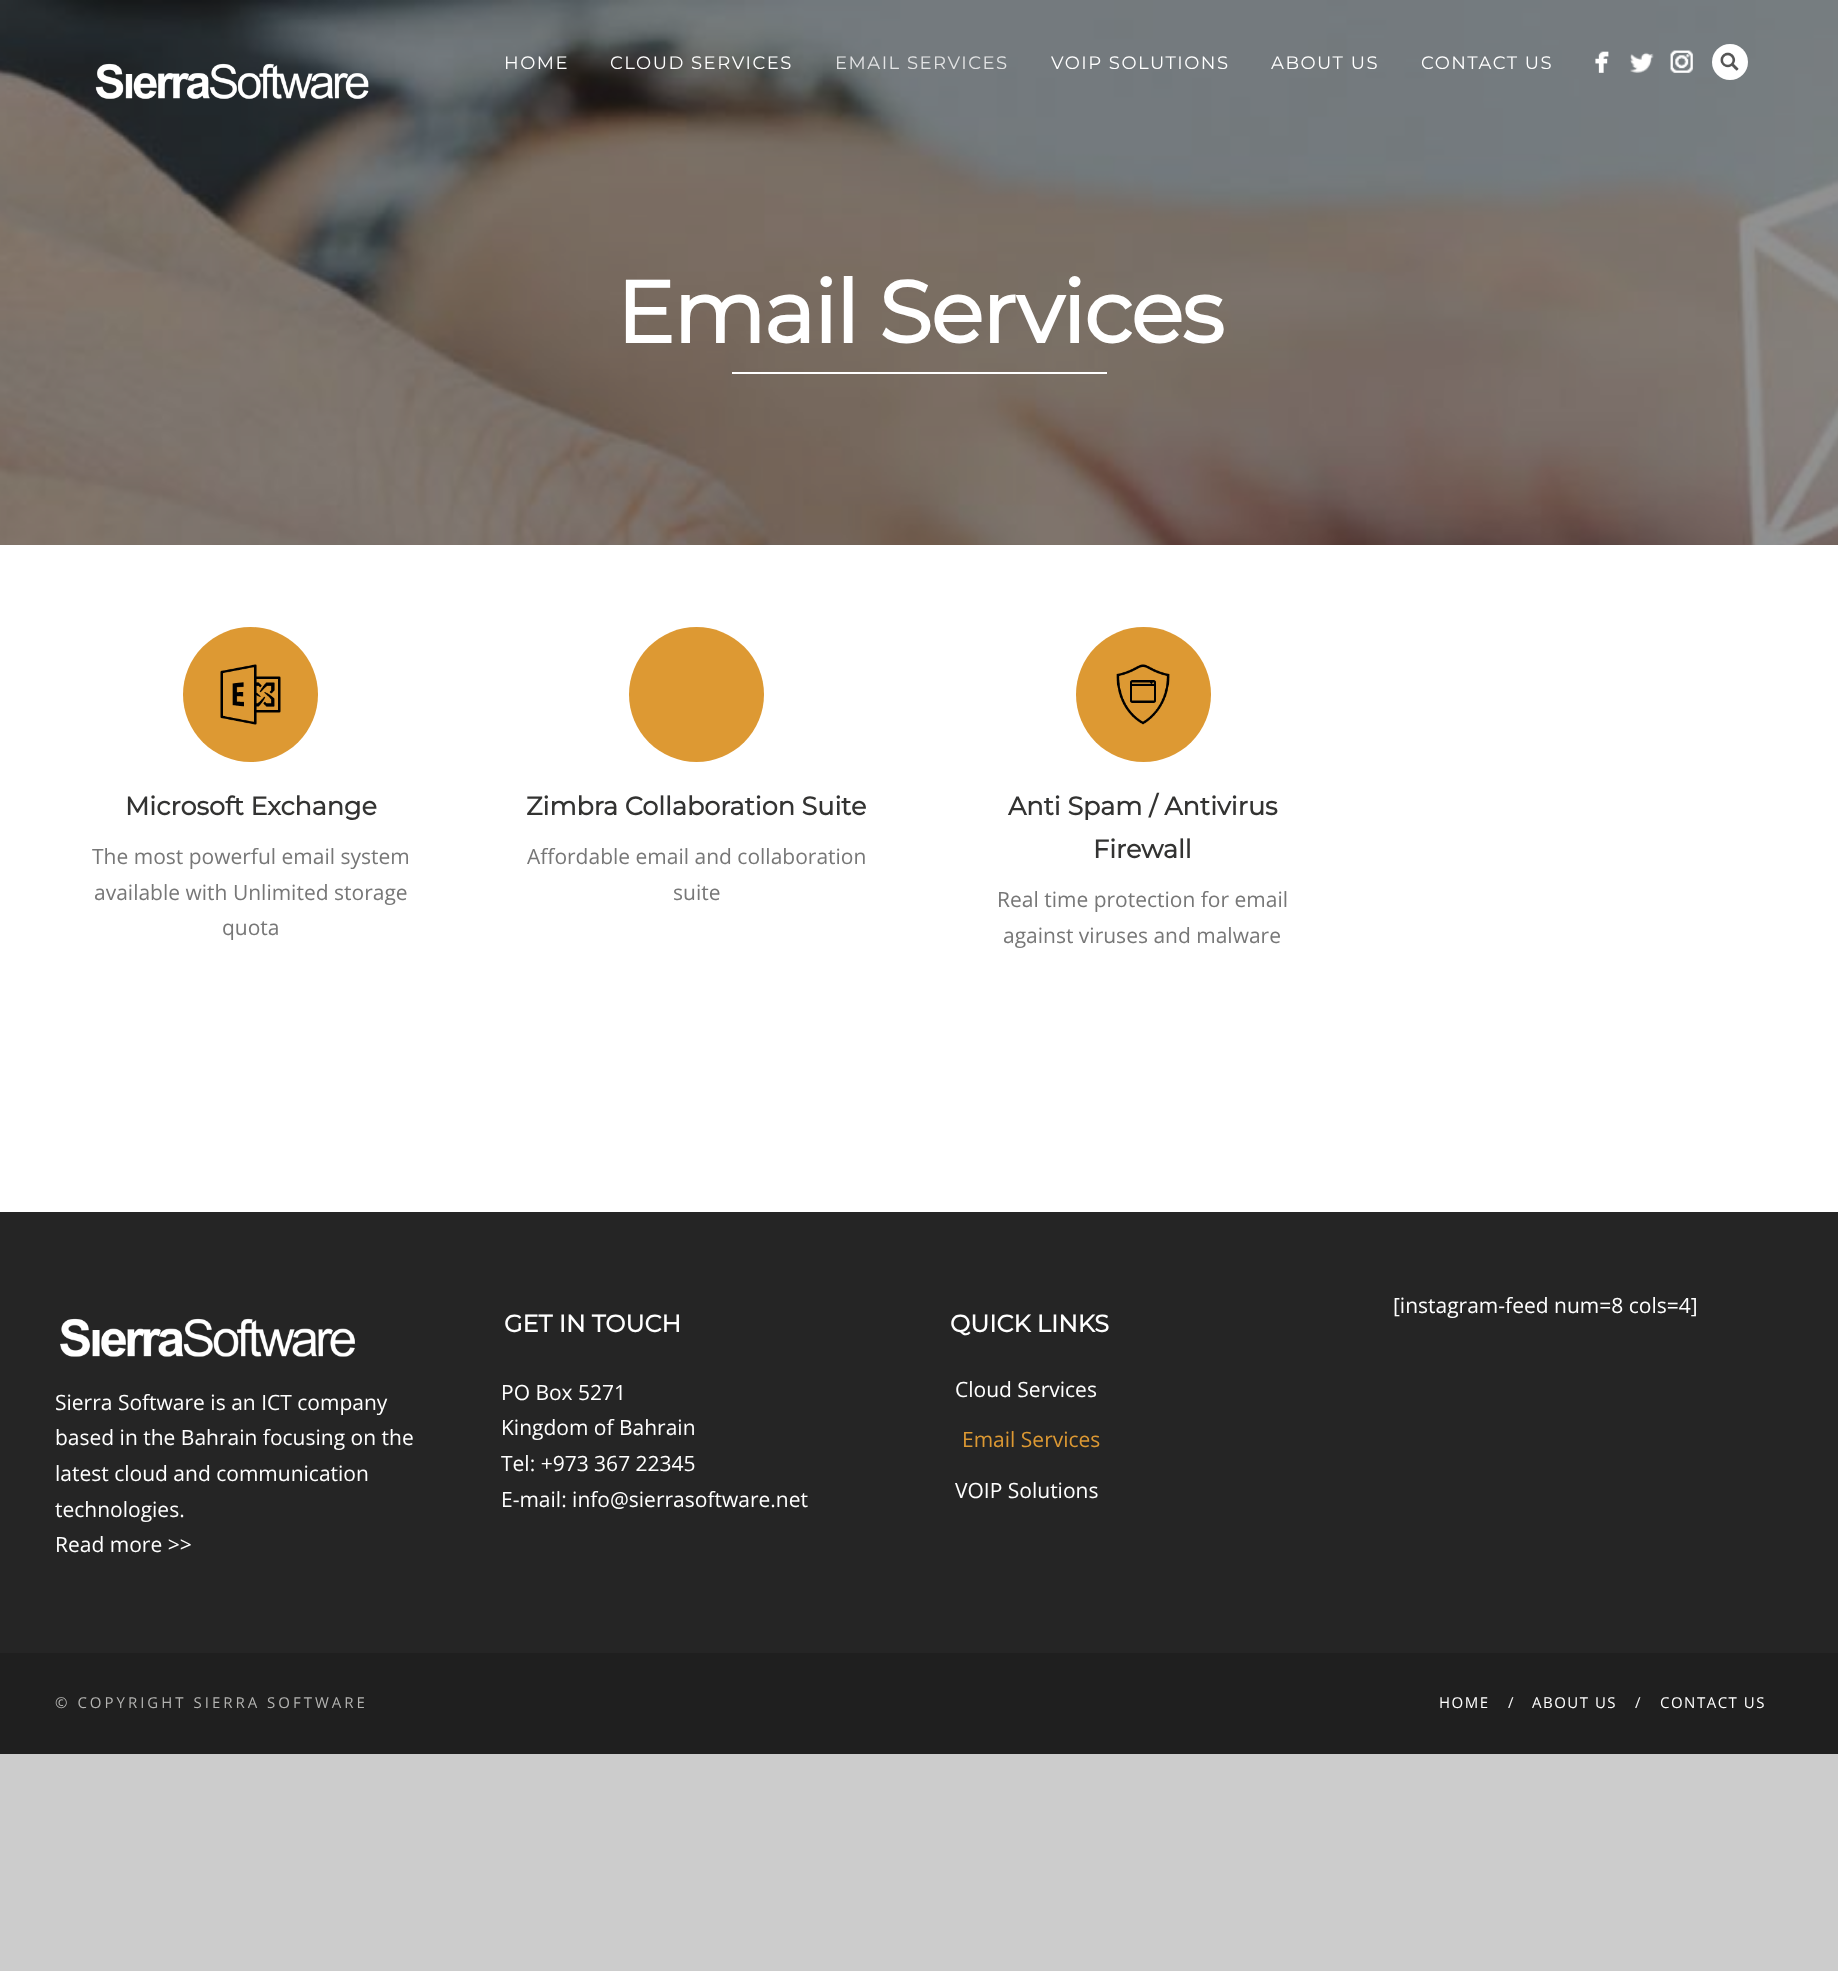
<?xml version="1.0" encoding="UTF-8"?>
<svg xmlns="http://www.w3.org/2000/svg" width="1838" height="1971">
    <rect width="100%" height="100%" fill="#CCCCCC"/>
    <rect x="0" y="545" width="1838" height="667" fill="#FFFFFF"/>
    <rect x="0" y="0" width="1838" height="545" fill="#252525"/>
    <image x="0" y="0" width="1838" height="545" href="img_01.png"/>
    <image x="95" y="63" width="274" height="36" href="img_02.png"/>
    <text x="504" y="69" font-family="Montserrat" font-size="18" font-weight="100" letter-spacing="1.5" fill="#FFFFFF">HOME</text>
    <text x="610" y="69" font-family="Montserrat" font-size="18" font-weight="100" letter-spacing="1.5" fill="#FFFFFF">CLOUD SERVICES</text>
    <text x="835" y="69" font-family="Montserrat" font-size="18" font-weight="100" letter-spacing="1.5" fill="#E3E4E5">EMAIL SERVICES</text>
    <text x="1051" y="69" font-family="Montserrat" font-size="18" font-weight="100" letter-spacing="1.5" fill="#FFFFFF">VOIP SOLUTIONS</text>
    <text x="1271" y="69" font-family="Montserrat" font-size="18" font-weight="100" letter-spacing="1.5" fill="#FFFFFF">ABOUT US</text>
    <text x="1421" y="69" font-family="Montserrat" font-size="18" font-weight="100" letter-spacing="1.5" fill="#FFFFFF">CONTACT US</text>
    <image x="1595" y="51" width="14" height="22" href="img_03.png"/>
    <image x="1630" y="52" width="24" height="21" href="img_04.png"/>
    <image x="1670" y="50" width="23" height="23" href="img_05.png"/>
    <circle cx="1730" cy="62" r="18" fill="#FFFFFF"/>
    <image x="1720" y="52" width="19" height="19" href="img_06.png"/>
    <text x="616" y="343" font-family="Montserrat" font-size="87" font-weight="700" letter-spacing="-1.5" fill="#FFFFFF">Email Services</text>
    <rect x="732" y="372" width="375" height="2" fill="#FFFFFF"/>
    <circle cx="250.5" cy="694.5" r="67.5" fill="#DD9933"/>
    <image x="220" y="664" width="61" height="61" href="img_07.png"/>
    <text x="125" y="815" font-family="Montserrat" font-size="25.5" font-weight="700" fill="#333332">Microsoft Exchange</text>
    <text x="92" y="864" font-family="Open Sans" font-size="21" fill="#777777">The most powerful email system</text>
    <text x="94" y="900" font-family="Open Sans" font-size="21" fill="#777777">available with Unlimited storage</text>
    <text x="222" y="935" font-family="Open Sans" font-size="21" fill="#777777">quota</text>
    <circle cx="696.5" cy="694.5" r="67.5" fill="#DD9933"/>
    <text x="526" y="815" font-family="Montserrat" font-size="25.5" font-weight="700" fill="#333332">Zimbra Collaboration Suite</text>
    <text x="527" y="864" font-family="Open Sans" font-size="21" fill="#777777">Affordable email and collaboration</text>
    <text x="673" y="900" font-family="Open Sans" font-size="21" fill="#777777">suite</text>
    <circle cx="1143.5" cy="694.5" r="67.5" fill="#DD9933"/>
    <image x="1116" y="664" width="54" height="61" href="img_08.png"/>
    <text x="1008" y="815" font-family="Montserrat" font-size="25.5" font-weight="700" fill="#333332">Anti Spam / Antivirus</text>
    <text x="1093" y="858" font-family="Montserrat" font-size="25.5" font-weight="700" fill="#333332">Firewall</text>
    <text x="997" y="907" font-family="Open Sans" font-size="21" fill="#777777">Real time protection for email</text>
    <text x="1003" y="943" font-family="Open Sans" font-size="21" fill="#777777">against viruses and malware</text>
    <rect x="0" y="1212" width="1838" height="441" fill="#252525"/>
    <text x="1393" y="1313" font-family="Open Sans" font-size="21" fill="#FFFFFF">[instagram-feed num=8 cols=4]</text>
    <image x="60" y="1318" width="295" height="39" href="img_09.png"/>
    <text font-family="Open Sans" font-size="21" fill="#FFFFFF">
        <tspan x="55" y="1410">Sierra Software is an ICT company</tspan>
        <tspan x="55" y="1445">based in the Bahrain focusing on the</tspan>
        <tspan x="55" y="1481">latest cloud and communication</tspan>
        <tspan x="55" y="1517">technologies.</tspan>
        <tspan x="55" y="1552">Read more &gt;&gt;</tspan>
    </text>
    <text x="504" y="1332" font-family="Montserrat" font-size="24" font-weight="700" fill="#FFFFFF">GET IN TOUCH</text>
    <text font-family="Open Sans" font-size="21" fill="#FFFFFF">
        <tspan x="501" y="1400">PO Box 5271</tspan>
        <tspan x="501" y="1435">Kingdom of Bahrain</tspan>
        <tspan x="501" y="1471">Tel: +973 367 22345</tspan>
        <tspan x="501" y="1507">E-mail: info@sierrasoftware.net</tspan>
    </text>
    <text x="950" y="1332" font-family="Montserrat" font-size="24" font-weight="700" fill="#FFFFFF">QUICK LINKS</text>
    <text x="955" y="1397" font-family="Open Sans" font-size="21" fill="#FFFFFF">Cloud Services</text>
    <text x="962" y="1447" font-family="Open Sans" font-size="21" fill="#DD9933">Email Services</text>
    <text x="955" y="1498" font-family="Open Sans" font-size="21" fill="#FFFFFF">VOIP Solutions</text>
    <rect x="0" y="1653" width="1838" height="101" fill="#1F1F1F"/>
    <text x="55" y="1708" font-family="Open Sans" font-size="15" letter-spacing="3" fill="#B3B3B1">© COPYRIGHT SIERRA SOFTWARE</text>
    <text x="1439" y="1708" font-family="Open Sans" font-size="15" letter-spacing="1.5" fill="#FFFFFF">HOME</text>
    <text x="1508" y="1708" font-family="Open Sans" font-size="15" letter-spacing="1.5" fill="#F7F7F7">/</text>
    <text x="1532" y="1708" font-family="Open Sans" font-size="15" letter-spacing="1.5" fill="#FFFFFF">ABOUT US</text>
    <text x="1635" y="1708" font-family="Open Sans" font-size="15" letter-spacing="1.5" fill="#F7F7F7">/</text>
    <text x="1660" y="1708" font-family="Open Sans" font-size="15" letter-spacing="1.5" fill="#FFFFFF">CONTACT US</text>
</svg>
